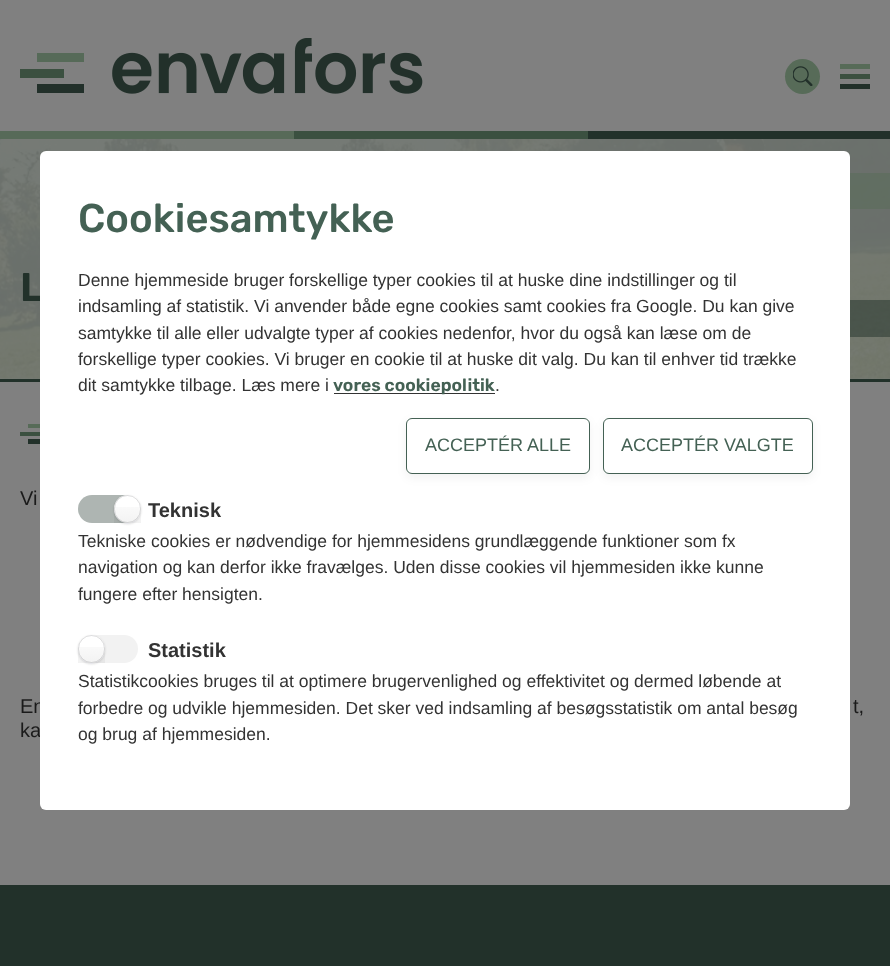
<?xml version="1.0" encoding="UTF-8"?>
<svg xmlns="http://www.w3.org/2000/svg" width="890" height="966">
    <defs>
        <filter id="blur1" x="-50%" y="-200%" width="200%" height="500%"><feGaussianBlur stdDeviation="5"/></filter>
        <filter id="blur2" x="-50%" y="-200%" width="200%" height="500%"><feGaussianBlur stdDeviation="1"/></filter>
        <linearGradient id="g1" gradientUnits="userSpaceOnUse" x1="128" y1="495" x2="128" y2="523"><stop offset="0" stop-color="#000000" stop-opacity="0"/><stop offset="1" stop-color="#000000" stop-opacity="0.05"/></linearGradient>
        <linearGradient id="g2" gradientUnits="userSpaceOnUse" x1="91" y1="635" x2="91" y2="663"><stop offset="0" stop-color="#000000" stop-opacity="0"/><stop offset="1" stop-color="#000000" stop-opacity="0.05"/></linearGradient>
    </defs>
    <rect width="100%" height="100%" fill="#808080"/>
    <rect x="0" y="378" width="890" height="1" fill="#767B76"/>
    <rect x="0" y="379" width="890" height="3" fill="#22312A"/>
    <image x="0" y="139" width="890" height="240" href="img_03.png"/>
    <text x="20" y="301" font-family="Rubik" font-size="40" font-weight="600" fill="#22312A">L</text>
    <rect x="20" y="432" width="22" height="4" fill="#3B5040"/>
    <text font-family="Liberation Sans" font-size="20" fill="#1A1A1A">
        <tspan x="20" y="713">En</tspan>
        <tspan x="20" y="737">ka</tspan>
    </text>
    <rect x="40" y="151" width="810" height="659" rx="6" fill="#FFFFFF"/>
    <text x="78" y="232" font-family="Rubik" font-size="40" font-weight="500" fill="#446154">Cookiesamtykke</text>
    <text font-family="Liberation Sans" font-size="17.5" fill="#333333">
        <tspan x="78" y="286">Denne hjemmeside bruger forskellige typer cookies til at huske dine indstillinger og til</tspan>
        <tspan x="78" y="312">indsamling af statistik. Vi anvender både egne cookies samt cookies fra Google. Du kan give</tspan>
        <tspan x="78" y="339">samtykke til alle eller udvalgte typer af cookies nedenfor, hvor du også kan læse om de</tspan>
        <tspan x="78" y="365">forskellige typer cookies. Vi bruger en cookie til at huske dit valg. Du kan til enhver tid trække</tspan>
        <tspan x="78" y="391">dit samtykke tilbage. Læs mere i</tspan>
    </text>
    <rect x="334" y="393" width="161" height="1" fill="#333333"/>
    <text x="333" y="391" font-family="Rubik" font-size="17.5" font-weight="600" fill="#446154">vores cookiepolitik</text>
    <text x="495" y="391" font-family="Liberation Sans" font-size="17.5" fill="#333333">.</text>
    <rect x="603" y="421" width="210" height="57" rx="6" fill="#000000" fill-opacity="0.05" filter="url(#blur1)"/>
    <rect x="603.5" y="418.5" width="209" height="55" rx="5.5" fill="#FFFFFF" stroke="#446154"/>
    <rect x="406" y="421" width="184" height="57" rx="6" fill="#000000" fill-opacity="0.05" filter="url(#blur1)"/>
    <rect x="406.5" y="418.5" width="183" height="55" rx="5.5" fill="#FFFFFF" stroke="#446154"/>
    <text x="425" y="451" font-family="Liberation Sans" font-size="18" fill="#446154">ACCEPTÉR ALLE</text>
    <text x="621" y="451" font-family="Liberation Sans" font-size="18" fill="#446154">ACCEPTÉR VALGTE</text>
    <rect x="78" y="495" width="60" height="28" rx="14" fill="#AEB5B2"/>
    <rect x="114" y="496" width="27" height="28" rx="13.5" fill="#222426" fill-opacity="0.15" filter="url(#blur2)"/>
    <rect x="114" y="495" width="27" height="28" rx="13.5" fill="#FFFFFF"/>
    <rect x="114" y="507" width="27" height="16" fill="url(#g1)"/>
    <rect x="114.5" y="495.5" width="26" height="27" rx="13" fill="none" stroke="#222426" stroke-opacity="0.15"/>
    <text x="148" y="517" font-family="Liberation Sans" font-size="20" font-weight="700" fill="#333333">Teknisk</text>
    <text font-family="Liberation Sans" font-size="17.5" fill="#333333">
        <tspan x="78" y="547">Tekniske cookies er nødvendige for hjemmesidens grundlæggende funktioner som fx</tspan>
        <tspan x="78" y="573">navigation og kan derfor ikke fravælges. Uden disse cookies vil hjemmesiden ikke kunne</tspan>
        <tspan x="78" y="600">fungere efter hensigten.</tspan>
    </text>
    <rect x="78" y="635" width="60" height="28" rx="14" fill="#F2F2F2"/>
    <rect x="78" y="636" width="27" height="28" rx="13.5" fill="#222426" fill-opacity="0.15" filter="url(#blur2)"/>
    <rect x="78" y="635" width="27" height="28" rx="13.5" fill="#FFFFFF"/>
    <rect x="78" y="647" width="27" height="16" fill="url(#g2)"/>
    <rect x="78.5" y="635.5" width="26" height="27" rx="13" fill="none" stroke="#222426" stroke-opacity="0.15"/>
    <text x="148" y="657" font-family="Liberation Sans" font-size="20" font-weight="700" fill="#333333">Statistik</text>
    <text font-family="Liberation Sans" font-size="17.5" fill="#333333">
        <tspan x="78" y="687">Statistikcookies bruges til at optimere brugervenlighed og effektivitet og dermed løbende at</tspan>
        <tspan x="78" y="714">forbedre og udvikle hjemmesiden. Det sker ved indsamling af besøgsstatistik om antal besøg</tspan>
        <tspan x="78" y="740">og brug af hjemmesiden.</tspan>
    </text>
    <image x="20" y="38" width="403" height="56" href="img_01.png"/>
    <circle cx="802.5" cy="76.5" r="17.5" fill="#576B58"/>
    <image x="793" y="66" width="20" height="20" href="img_02.png"/>
    <rect x="840" y="64" width="30" height="5" fill="#576B58"/>
    <rect x="840" y="84" width="30" height="5" fill="#22312A"/>
    <rect x="840" y="74" width="30" height="5" fill="#3B5040"/>
    <rect x="0" y="131" width="294" height="8" fill="#576A58"/>
    <rect x="294" y="131" width="294" height="8" fill="#3B5040"/>
    <rect x="588" y="131" width="302" height="8" fill="#22312A"/>
    <rect x="850" y="300" width="40" height="37" fill="#22312A" fill-opacity="0.5"/>
    <rect x="850" y="173" width="40" height="36" fill="#576B58" fill-opacity="0.5"/>
    <rect x="28" y="439" width="12" height="5" fill="#22312A"/>
    <rect x="28" y="424" width="12" height="4" fill="#576B58"/>
    <text x="20" y="505" font-family="Liberation Sans" font-size="20" fill="#1A1A1A">Vi</text>
    <text x="853" y="713" font-family="Liberation Sans" font-size="20" fill="#1A1A1A">t,</text>
    <rect x="0" y="885" width="890" height="81" fill="#22312A"/>
</svg>
